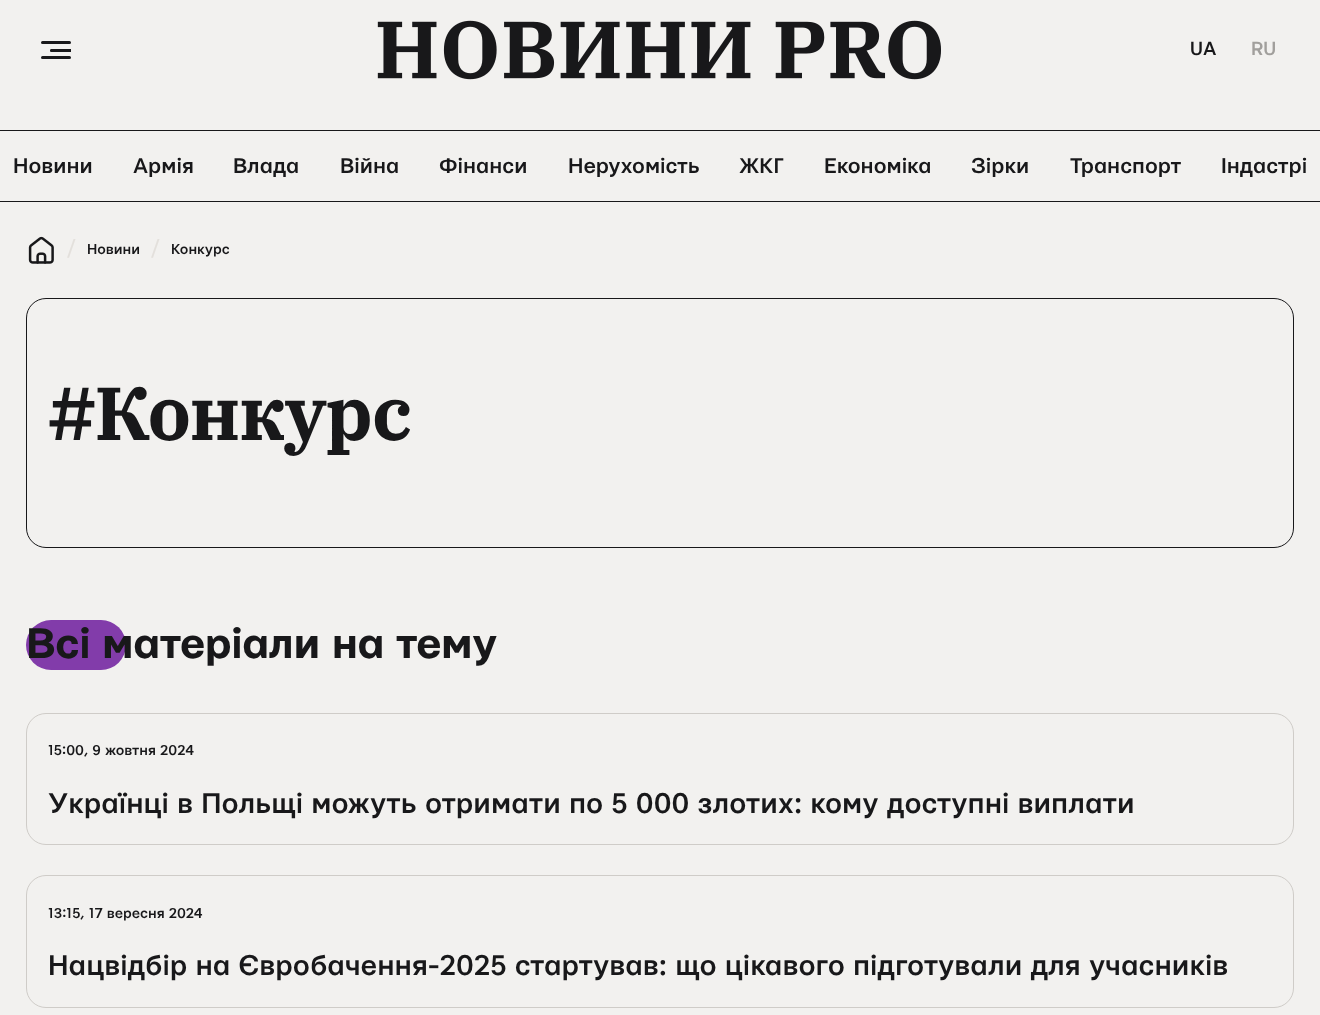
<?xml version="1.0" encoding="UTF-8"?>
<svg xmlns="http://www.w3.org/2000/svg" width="1320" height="1015">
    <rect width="100%" height="100%" fill="#F2F1EF"/>
    <rect x="41" y="41" width="30" height="3" rx="1.5" fill="#18181A"/>
    <path d="M 51.5 49 H 71 V 52 H 51.5 C 50.5 52 50 51.5 50 50.5 C 50 49.5 50.5 49 51.5 49 Z" fill="#18181A"/>
    <rect x="41" y="56" width="30" height="3" rx="1.5" fill="#18181A"/>
    <image x="377" y="20" width="564" height="60" href="img_01.png"/>
    <text x="1190" y="55" font-family="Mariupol" font-size="20" font-weight="500" fill="#18181A">UA</text>
    <text x="1251" y="55" font-family="Mariupol" font-size="20" font-weight="500" fill="#A19F9C">RU</text>
    <rect x="0" y="130" width="1320" height="1" fill="#18181A"/>
    <rect x="0" y="201" width="1320" height="1" fill="#18181A"/>
    <text x="13" y="173" font-family="Mariupol" font-size="22.5" font-weight="500" fill="#18181A">Новини</text>
    <text x="133" y="173" font-family="Mariupol" font-size="22.5" font-weight="500" fill="#18181A">Армія</text>
    <text x="233" y="173" font-family="Mariupol" font-size="22.5" font-weight="500" fill="#18181A">Влада</text>
    <text x="340" y="173" font-family="Mariupol" font-size="22.5" font-weight="500" fill="#18181A">Війна</text>
    <text x="439" y="173" font-family="Mariupol" font-size="22.5" font-weight="500" fill="#18181A">Фінанси</text>
    <text x="568" y="173" font-family="Mariupol" font-size="22.5" font-weight="500" fill="#18181A">Нерухомість</text>
    <text x="739" y="173" font-family="Mariupol" font-size="22.5" font-weight="500" fill="#18181A">ЖКГ</text>
    <text x="824" y="173" font-family="Mariupol" font-size="22.5" font-weight="500" fill="#18181A">Економіка</text>
    <text x="971" y="173" font-family="Mariupol" font-size="22.5" font-weight="500" fill="#18181A">Зірки</text>
    <text x="1070" y="173" font-family="Mariupol" font-size="22.5" font-weight="500" fill="#18181A">Транспорт</text>
    <text x="1221" y="173" font-family="Mariupol" font-size="22.5" font-weight="500" fill="#18181A">Індастрі</text>
    <image x="28" y="236" width="26" height="28" href="img_02.png"/>
    <text x="66" y="256" font-family="Mariupol" font-size="22.5" fill="#E3E0DC">/</text>
    <text x="87" y="254" font-family="Mariupol" font-size="15" font-weight="500" fill="#18181A">Новини</text>
    <text x="150" y="256" font-family="Mariupol" font-size="22.5" fill="#E3E0DC">/</text>
    <text x="171" y="254" font-family="Mariupol" font-size="15" font-weight="500" fill="#18181A">Конкурс</text>
    <rect x="26.5" y="298.5" width="1267" height="249" rx="19.5" fill="none" stroke="#18181A"/>
    <text x="48" y="440" font-family="IBM Plex Serif" font-size="75" font-weight="700" letter-spacing="-1.5" fill="#18181A">#Конкурс</text>
    <rect x="26" y="620" width="100" height="50" rx="25" fill="#823CAA"/>
    <text x="26" y="658" font-family="Mariupol" font-size="45" font-weight="700" letter-spacing="-0.9" fill="#18181A">Всі матеріали на тему</text>
    <rect x="26.5" y="713.5" width="1267" height="131" rx="19.5" fill="none" stroke="#CFCCC8"/>
    <text x="48" y="755" font-family="Mariupol" font-size="15" font-weight="500" fill="#18181A">15:00, 9 жовтня 2024</text>
    <text x="48" y="813" font-family="Mariupol" font-size="30" font-weight="500" fill="#18181A">Українці в Польщі можуть отримати по 5 000 злотих: кому доступні виплати</text>
    <rect x="26.5" y="875.5" width="1267" height="132" rx="19.5" fill="none" stroke="#CFCCC8"/>
    <text x="48" y="918" font-family="Mariupol" font-size="15" font-weight="500" fill="#18181A">13:15, 17 вересня 2024</text>
    <text x="48" y="975" font-family="Mariupol" font-size="30" font-weight="500" fill="#18181A">Нацвідбір на Євробачення-2025 стартував: що цікавого підготували для учасників</text>
</svg>
